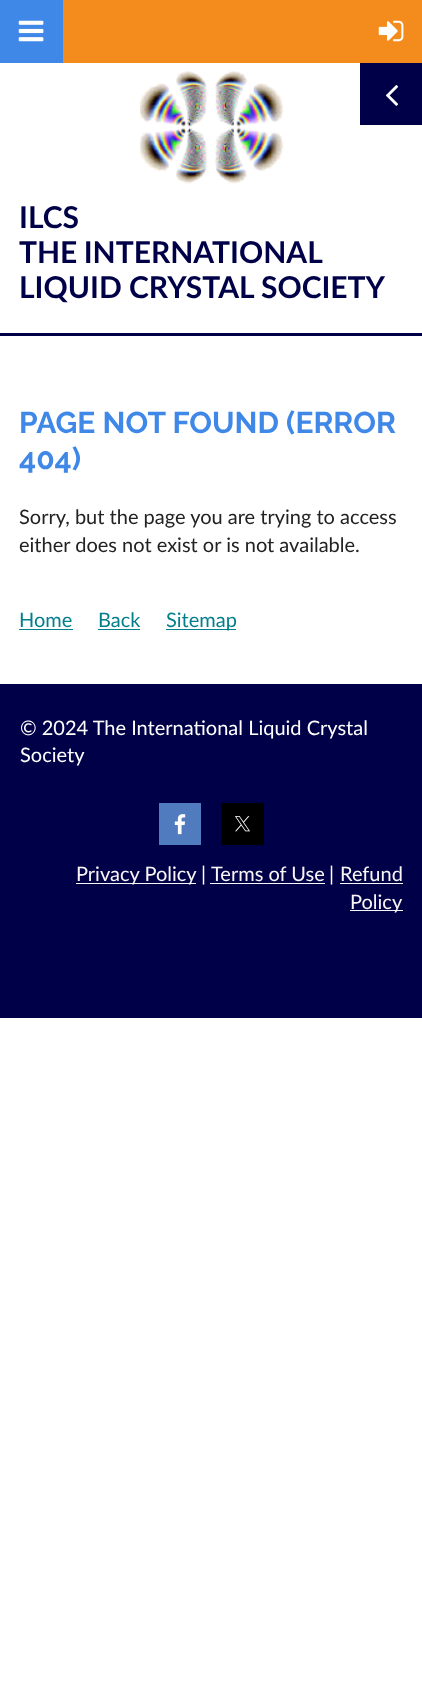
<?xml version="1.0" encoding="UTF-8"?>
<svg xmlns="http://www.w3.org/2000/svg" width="422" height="1703">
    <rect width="100%" height="100%" fill="#FFFFFF"/>
    <rect x="360" y="63" width="62" height="62" fill="#000048"/>
    <image x="386" y="85" width="13" height="21" href="img_01.png"/>
    <rect x="63" y="0" width="359" height="63" fill="#F38C1C"/>
    <rect x="0" y="0" width="63" height="63" fill="#3F88E8"/>
    <image x="18" y="20" width="26" height="22" href="img_02.png"/>
    <image x="378" y="20" width="26" height="22" href="img_03.png"/>
    <image x="140" y="71" width="144" height="113" href="img_04.png"/>
    <text font-family="Lato" font-size="30" font-weight="700" fill="#000048">
        <tspan x="19" y="228">ILCS</tspan>
        <tspan x="19" y="263" word-spacing="-1">THE INTERNATIONAL</tspan>
        <tspan x="19" y="298">LIQUID CRYSTAL SOCIETY</tspan>
    </text>
    <rect x="0" y="333" width="422" height="3" fill="#000048"/>
    <text font-family="Raleway" font-size="30" font-weight="700" fill="#3F88E8">
        <tspan x="19" y="433">PAGE NOT FOUND (ERROR</tspan>
        <tspan x="19" y="469">404)</tspan>
    </text>
    <text font-family="Lato" font-size="20" fill="#222222">
        <tspan x="19" y="524">Sorry, but the page you are trying to access</tspan>
        <tspan x="19" y="552">either does not exist or is not available.</tspan>
    </text>
    <text x="19" y="627" font-family="Lato" font-size="20" fill="#047E8D">Home</text>
    <rect x="19" y="629" width="54" height="1" fill="#047E8D"/>
    <text x="98" y="627" font-family="Lato" font-size="20" fill="#047E8D">Back</text>
    <rect x="98" y="629" width="42" height="1" fill="#047E8D"/>
    <rect x="166" y="629" width="70" height="1" fill="#047E8D"/>
    <text x="166" y="627" font-family="Lato" font-size="20" fill="#047E8D">Sitemap</text>
    <rect x="0" y="684" width="422" height="334" fill="#000048"/>
    <text font-family="Lato" font-size="20" fill="#FFFFFF">
        <tspan x="20" y="735">© 2024 The International Liquid Crystal</tspan>
        <tspan x="20" y="762">Society</tspan>
    </text>
    <rect x="159" y="803" width="42" height="42" fill="#507BBE"/>
    <image x="174" y="814" width="12" height="21" href="img_05.png"/>
    <rect x="221" y="803" width="43" height="42" fill="#000000"/>
    <image x="235" y="816" width="15" height="16" href="img_06.png"/>
    <rect x="76" y="883" width="120" height="1" fill="#F9F5F5"/>
    <text x="76" y="881" font-family="Lato" font-size="20" fill="#F9F5F5">Privacy Policy</text>
    <text x="201" y="881" font-family="Lato" font-size="20" fill="#FFFFFF">|</text>
    <text x="211" y="881" font-family="Lato" font-size="20" fill="#F9F5F5">Terms of Use</text>
    <rect x="210" y="883" width="115" height="1" fill="#F9F5F5"/>
    <text x="329" y="881" font-family="Lato" font-size="20" fill="#FFFFFF">|</text>
    <text x="340" y="881" font-family="Lato" font-size="20" fill="#F9F5F5">Refund</text>
    <rect x="340" y="883" width="63" height="1" fill="#F9F5F5"/>
    <rect x="350" y="910" width="53" height="1" fill="#F9F5F5"/>
    <text x="350" y="909" font-family="Lato" font-size="20" fill="#F9F5F5">Policy</text>
</svg>
